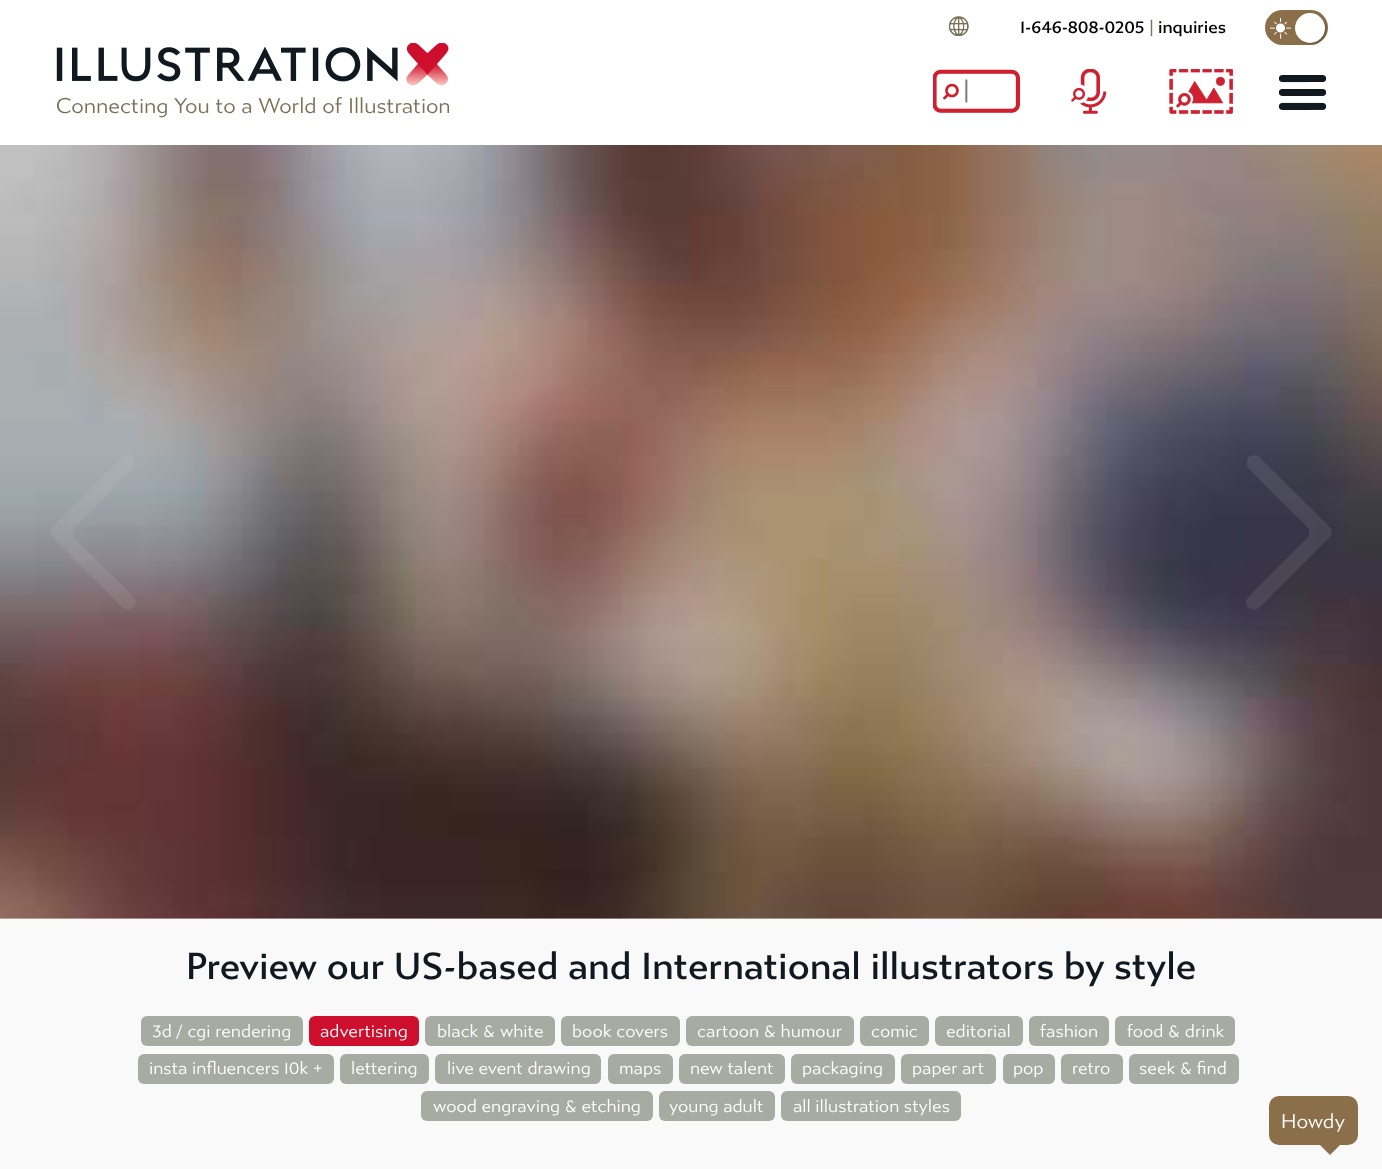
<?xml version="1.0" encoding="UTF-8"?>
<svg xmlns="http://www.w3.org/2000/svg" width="1382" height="1169">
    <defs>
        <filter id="blur1" x="-50%" y="-200%" width="200%" height="500%"><feGaussianBlur stdDeviation="1"/></filter>
    </defs>
    <rect width="100%" height="100%" fill="#EFEFEA"/>
    <rect x="0" y="0" width="1382" height="145" fill="#FFFFFF"/>
    <image x="949" y="16" width="20" height="20" href="img_01.png"/>
    <text x="1020" y="33" font-family="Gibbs" font-size="17.5" font-weight="500" fill="#000000">1-646-808-0205</text>
    <text x="1149" y="33" font-family="Gibbs" font-size="17.5" font-weight="500" fill="#7A7157">|</text>
    <text x="1158" y="33" font-family="Gibbs" font-size="17.5" font-weight="500" fill="#000000">inquiries</text>
    <rect x="1265" y="10" width="63" height="35" rx="17.5" fill="#8B6F4B"/>
    <image x="1270" y="18" width="21" height="21" href="img_02.png"/>
    <rect x="1296" y="14" width="30" height="30" rx="15" fill="#000000" fill-opacity="0.3" filter="url(#blur1)"/>
    <circle cx="1310" cy="28" r="15" fill="#FFFFFF"/>
    <image x="56" y="43" width="393" height="43" href="img_03.png"/>
    <text x="56" y="113" font-family="Gibbs" font-size="21.25" fill="#7A7157">Connecting You to a World of Illustration</text>
    <image x="933" y="69" width="87" height="44" href="img_04.png"/>
    <image x="1071" y="69" width="36" height="45" href="img_05.png"/>
    <image x="1169" y="69" width="65" height="45" href="img_06.png"/>
    <image x="1279" y="75" width="47" height="35" href="img_07.png"/>
    <image x="0" y="145" width="1382" height="774" href="img_08.png"/>
    <path d="M 136 601 C 131 593 124 587 118 581 L 83 547 C 75 539 67 535 77 525 L 125 476 C 129 472 138 466 134 459 C 133 457 132 456 131 455 C 128 454 123 455 121 458 L 54 525 C 49 530 49 534 54 539 L 112 597 C 116 601 125 614 132 608 C 135 607 136 603 136 601 Z" fill="#DDDDDD" fill-opacity="0.1"/>
    <path d="M 1246 601 L 1250 595 L 1305 540 C 1311 534 1311 531 1305 525 L 1250 470 C 1248 468 1246 465 1247 463 C 1247 460 1248 457 1250 456 C 1252 455 1256 455 1258 456 C 1259 456 1260 458 1261 459 L 1328 525 C 1333 531 1333 534 1328 539 L 1261 606 L 1257 609 C 1252 611 1246 608 1246 601 Z" fill="#DDDDDD" fill-opacity="0.1"/>
    <rect x="0" y="919" width="1382" height="250" fill="#F9F9F9"/>
    <text x="186" y="979" font-family="Gibbs" font-size="37.5" font-weight="500" fill="#101820">Preview our US-based and International illustrators by style</text>
    <rect x="141" y="1016" width="162" height="30" rx="6" fill="#A7ABA1"/>
    <text x="152" y="1037" font-family="Gibbs" font-size="17.5" fill="#FFFFFF">3d / cgi rendering</text>
    <rect x="309" y="1016" width="110" height="30" rx="6" fill="#CE0E2D"/>
    <text x="320" y="1037" font-family="Gibbs" font-size="17.5" fill="#FFFFFF">advertising</text>
    <rect x="425" y="1016" width="130" height="30" rx="6" fill="#A7ABA1"/>
    <text x="437" y="1037" font-family="Gibbs" font-size="17.5" fill="#FFFFFF">black &amp; white</text>
    <rect x="561" y="1016" width="119" height="30" rx="6" fill="#A7ABA1"/>
    <text x="572" y="1037" font-family="Gibbs" font-size="17.5" fill="#FFFFFF">book covers</text>
    <rect x="686" y="1016" width="168" height="30" rx="6" fill="#A7ABA1"/>
    <text x="697" y="1037" font-family="Gibbs" font-size="17.5" fill="#FFFFFF">cartoon &amp; humour</text>
    <rect x="860" y="1016" width="69" height="30" rx="6" fill="#A7ABA1"/>
    <text x="871" y="1037" font-family="Gibbs" font-size="17.5" fill="#FFFFFF">comic</text>
    <rect x="935" y="1016" width="88" height="30" rx="6" fill="#A7ABA1"/>
    <text x="946" y="1037" font-family="Gibbs" font-size="17.5" fill="#FFFFFF">editorial</text>
    <rect x="1029" y="1016" width="80" height="30" rx="6" fill="#A7ABA1"/>
    <text x="1040" y="1037" font-family="Gibbs" font-size="17.5" fill="#FFFFFF">fashion</text>
    <rect x="1115" y="1016" width="120" height="30" rx="6" fill="#A7ABA1"/>
    <text x="1127" y="1037" font-family="Gibbs" font-size="17.5" fill="#FFFFFF">food &amp; drink</text>
    <rect x="138" y="1054" width="196" height="30" rx="6" fill="#A7ABA1"/>
    <text x="149" y="1074" font-family="Gibbs" font-size="17.5" fill="#FFFFFF">insta influencers 10k +</text>
    <rect x="340" y="1054" width="89" height="30" rx="6" fill="#A7ABA1"/>
    <text x="351" y="1074" font-family="Gibbs" font-size="17.5" fill="#FFFFFF">lettering</text>
    <rect x="435" y="1054" width="166" height="30" rx="6" fill="#A7ABA1"/>
    <text x="447" y="1074" font-family="Gibbs" font-size="17.5" fill="#FFFFFF">live event drawing</text>
    <rect x="608" y="1054" width="65" height="30" rx="6" fill="#A7ABA1"/>
    <text x="619" y="1074" font-family="Gibbs" font-size="17.5" fill="#FFFFFF">maps</text>
    <rect x="679" y="1054" width="106" height="30" rx="6" fill="#A7ABA1"/>
    <text x="690" y="1074" font-family="Gibbs" font-size="17.5" fill="#FFFFFF">new talent</text>
    <rect x="791" y="1054" width="104" height="30" rx="6" fill="#A7ABA1"/>
    <text x="802" y="1074" font-family="Gibbs" font-size="17.5" fill="#FFFFFF">packaging</text>
    <rect x="901" y="1054" width="95" height="30" rx="6" fill="#A7ABA1"/>
    <text x="912" y="1074" font-family="Gibbs" font-size="17.5" fill="#FFFFFF">paper art</text>
    <rect x="1003" y="1054" width="52" height="30" rx="6" fill="#A7ABA1"/>
    <text x="1013" y="1074" font-family="Gibbs" font-size="17.5" fill="#FFFFFF">pop</text>
    <rect x="1061" y="1054" width="62" height="30" rx="6" fill="#A7ABA1"/>
    <text x="1072" y="1074" font-family="Gibbs" font-size="17.5" fill="#FFFFFF">retro</text>
    <rect x="1129" y="1054" width="110" height="30" rx="6" fill="#A7ABA1"/>
    <text x="1139" y="1074" font-family="Gibbs" font-size="17.5" fill="#FFFFFF">seek &amp; find</text>
    <rect x="421" y="1091" width="232" height="30" rx="6" fill="#A7ABA1"/>
    <text x="433" y="1112" font-family="Gibbs" font-size="17.5" fill="#FFFFFF">wood engraving &amp; etching</text>
    <rect x="659" y="1091" width="116" height="30" rx="6" fill="#A7ABA1"/>
    <text x="669" y="1112" font-family="Gibbs" font-size="17.5" fill="#FFFFFF">young adult</text>
    <rect x="781" y="1091" width="180" height="30" rx="6" fill="#A7ABA1"/>
    <text x="793" y="1112" font-family="Gibbs" font-size="17.5" fill="#FFFFFF">all illustration styles</text>
    <rect x="1269" y="1096" width="89" height="49" rx="10" fill="#8B6F4B"/>
    <text x="1281" y="1128" font-family="Gibbs" font-size="20" fill="#FFFFFF">Howdy</text>
    <path d="M 1317.5 1142.5 H 1342.5 L 1330 1155 Z" fill="#8B6F4B"/>
</svg>
